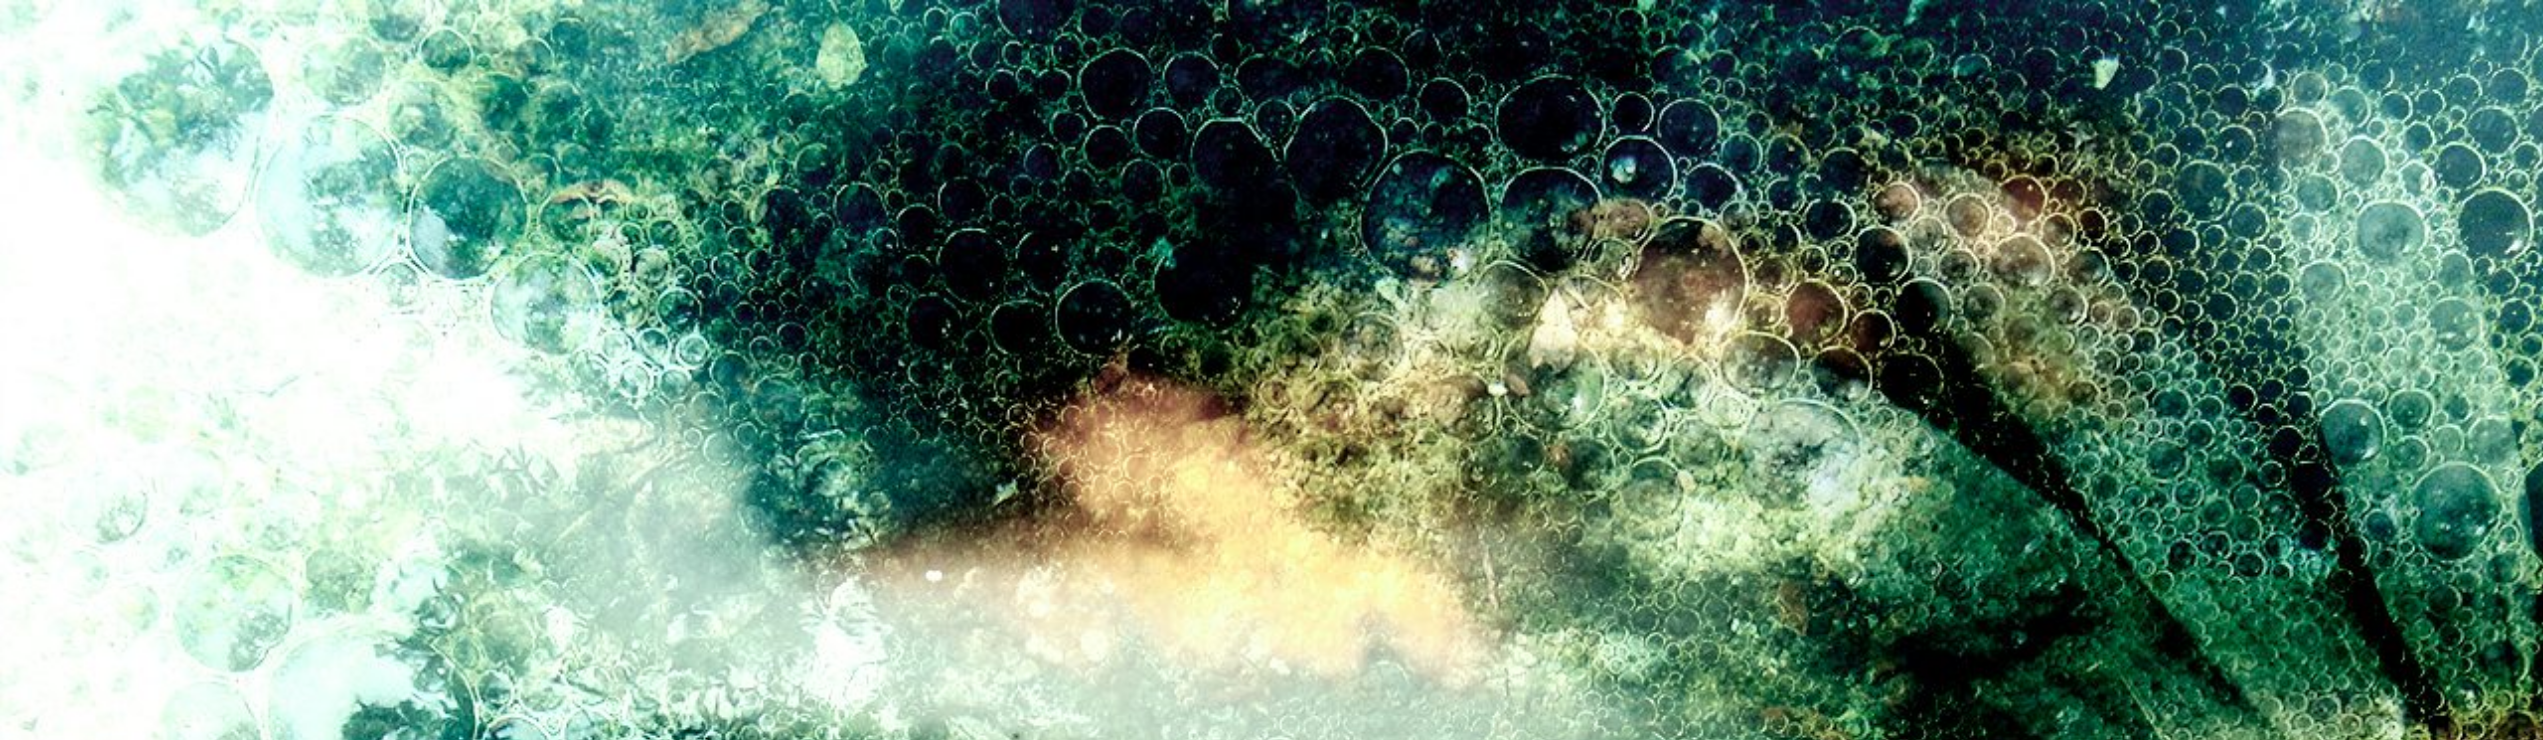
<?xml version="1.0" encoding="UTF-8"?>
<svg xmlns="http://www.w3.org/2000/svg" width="2543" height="740">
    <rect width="100%" height="100%" fill="#FFFFFF"/>
    <image x="0" y="0" width="2543" height="740" href="img_01.png"/>
</svg>
